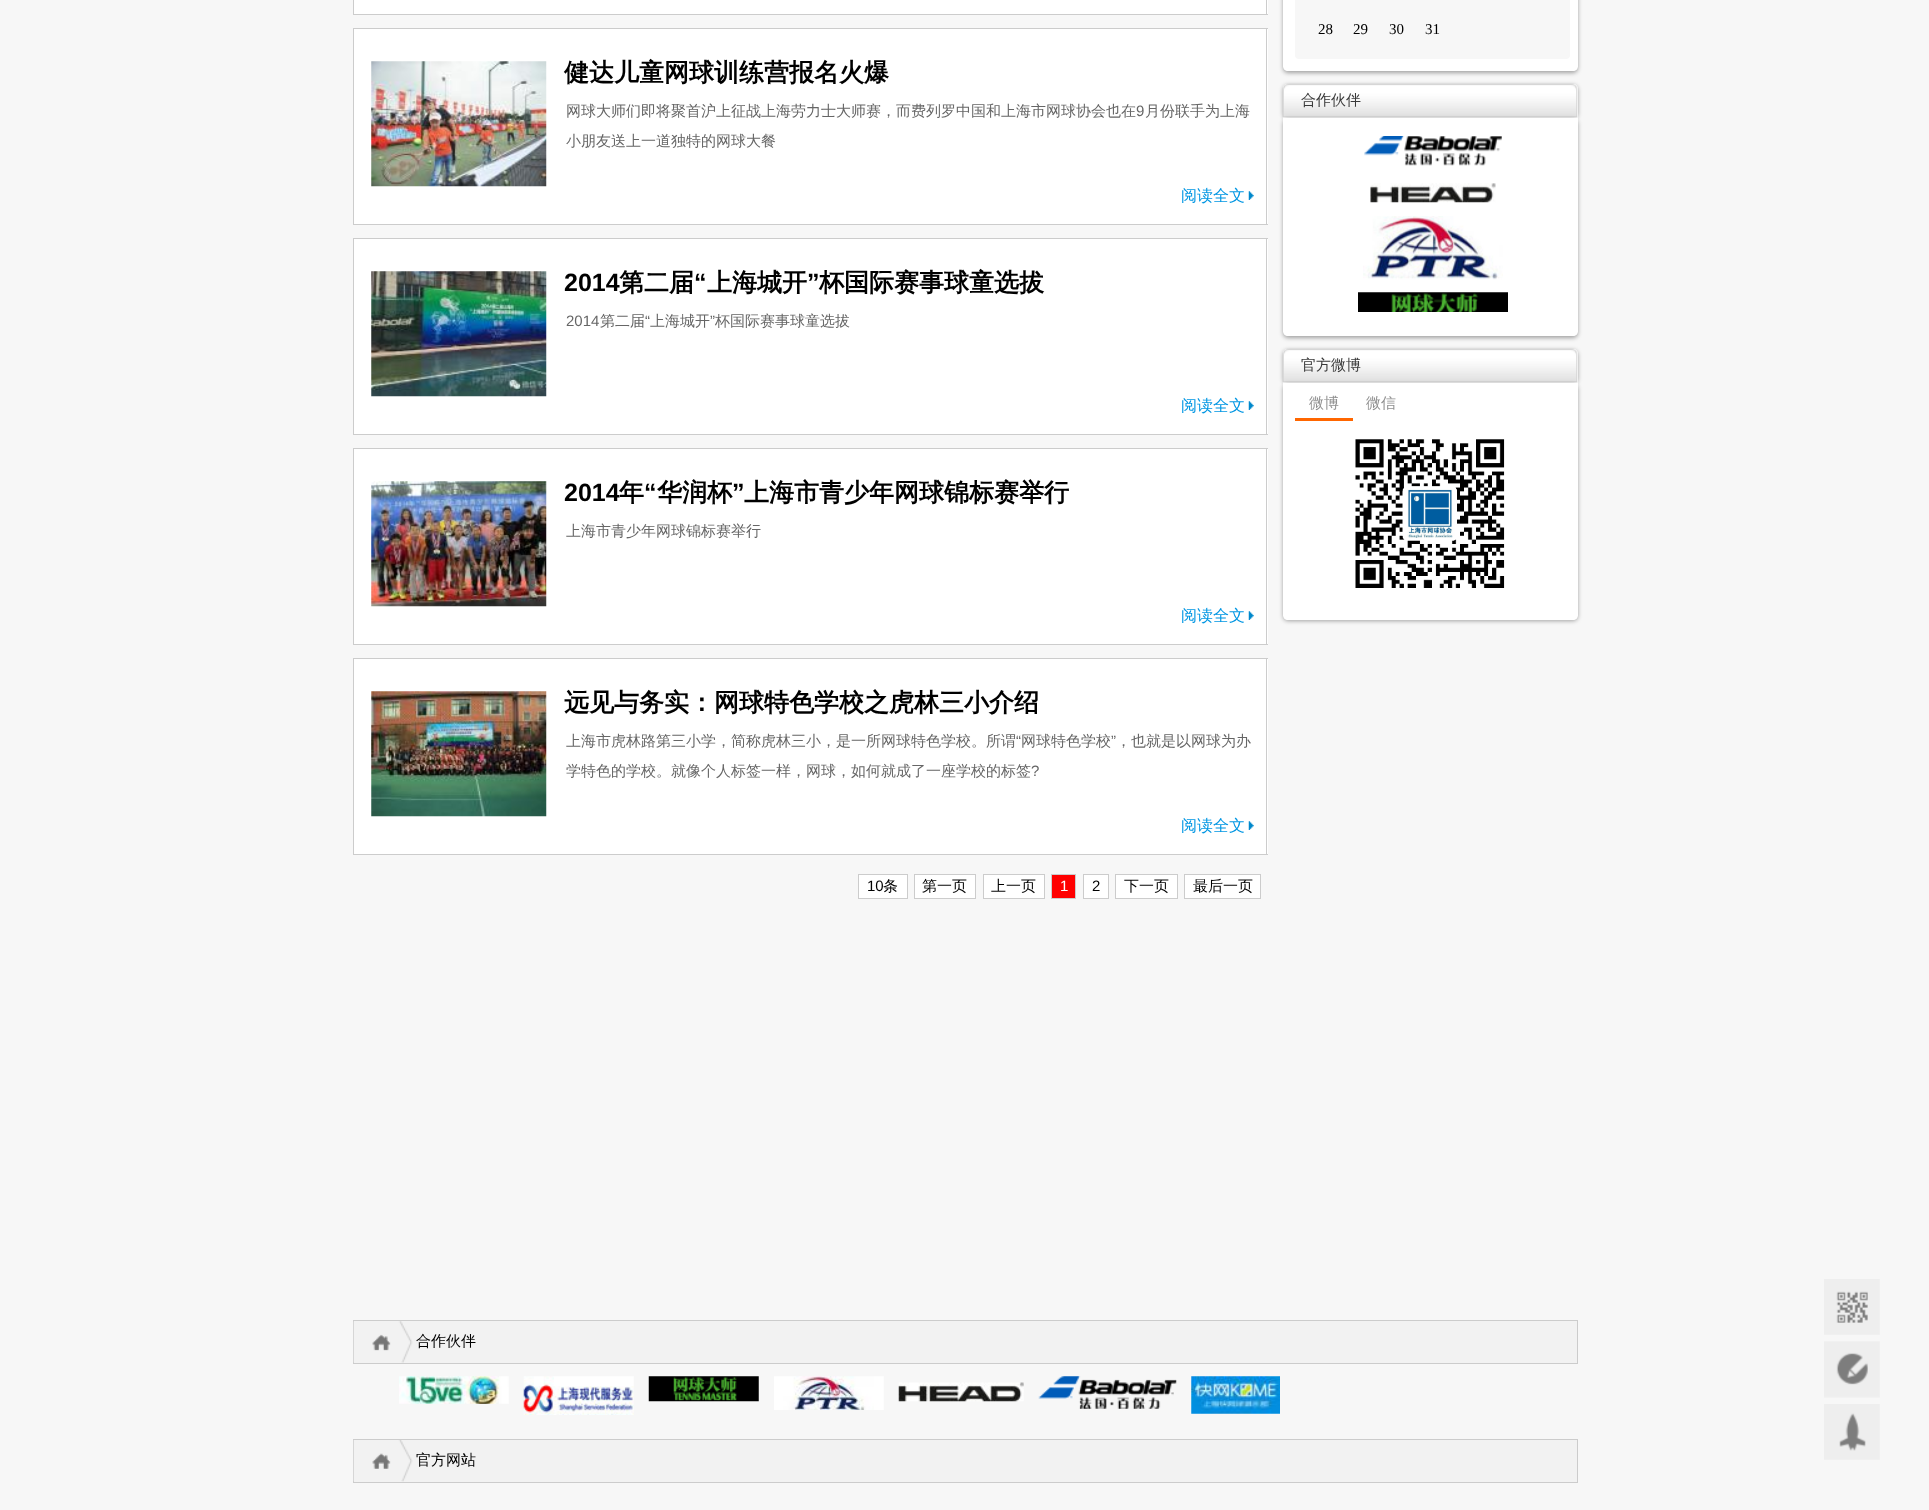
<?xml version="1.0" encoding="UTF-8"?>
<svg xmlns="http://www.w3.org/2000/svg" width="1929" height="1510">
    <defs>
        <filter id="blur1" x="-50%" y="-200%" width="200%" height="500%"><feGaussianBlur stdDeviation="2"/></filter>
    </defs>
    <rect width="100%" height="100%" fill="#F7F7F7"/>
    <rect x="353" y="0" width="915" height="1" fill="#FFFFFF"/>
    <rect x="1266" y="0" width="1" height="1" fill="#CCCCCC"/>
    <rect x="353" y="0" width="1" height="1" fill="#CCCCCC"/>
    <rect x="354" y="1" width="914" height="13" fill="#FFFFFF"/>
    <rect x="1266" y="1" width="1" height="14" fill="#CCCCCC"/>
    <rect x="353" y="14" width="915" height="1" fill="#CCCCCC"/>
    <rect x="353" y="1" width="1" height="14" fill="#CCCCCC"/>
    <rect x="354" y="29" width="914" height="195" fill="#FFFFFF"/>
    <rect x="353" y="28" width="915" height="1" fill="#CCCCCC"/>
    <rect x="1266" y="28" width="1" height="197" fill="#CCCCCC"/>
    <rect x="353" y="28" width="1" height="183" fill="#CCCCCC"/>
    <image x="371" y="61" width="176" height="126" href="img_01.png"/>
    <text x="564" y="81" font-family="WenQuanYi Zen Hei" font-size="25" font-weight="700" fill="#000000">健达儿童网球训练营报名火爆</text>
    <text x="566" y="116" font-family="WenQuanYi Zen Hei" font-size="15" font-weight="500" fill="#666666">网球大师们即将聚首沪上征战上海劳力士大师赛，而费列罗中国和上海市网球协会也在</text>
    <text x="1136" y="116" font-family="Liberation Sans" font-size="15" fill="#666666">9</text>
    <text x="1145" y="116" font-family="WenQuanYi Zen Hei" font-size="15" font-weight="500" fill="#666666">月份联手为上海</text>
    <text x="566" y="146" font-family="WenQuanYi Zen Hei" font-size="15" font-weight="500" fill="#666666">小朋友送上一道独特的网球大餐</text>
    <image x="1248" y="191" width="6" height="9" href="img_02.png"/>
    <text x="1181" y="201" font-family="WenQuanYi Zen Hei" font-size="16" font-weight="500" fill="#0196E3">阅读全文</text>
    <rect x="353" y="224" width="915" height="1" fill="#CCCCCC"/>
    <rect x="353" y="211" width="1" height="14" fill="#CCCCCC"/>
    <rect x="354" y="239" width="914" height="195" fill="#FFFFFF"/>
    <rect x="353" y="238" width="915" height="1" fill="#CCCCCC"/>
    <rect x="1266" y="238" width="1" height="197" fill="#CCCCCC"/>
    <rect x="353" y="238" width="1" height="183" fill="#CCCCCC"/>
    <image x="371" y="271" width="176" height="126" href="img_03.png"/>
    <text x="564" y="291" font-family="Liberation Sans" font-size="25" font-weight="700" fill="#000000">2014</text>
    <text x="619" y="291" font-family="WenQuanYi Zen Hei" font-size="25" font-weight="700" fill="#000000">第二届</text>
    <text x="694" y="291" font-family="Liberation Sans" font-size="25" font-weight="700" fill="#000000">“</text>
    <text x="707" y="291" font-family="WenQuanYi Zen Hei" font-size="25" font-weight="700" fill="#000000">上海城开</text>
    <text x="807" y="291" font-family="Liberation Sans" font-size="25" font-weight="700" fill="#000000">”</text>
    <text x="819" y="291" font-family="WenQuanYi Zen Hei" font-size="25" font-weight="700" fill="#000000">杯国际赛事球童选拔</text>
    <text x="566" y="326" font-family="Liberation Sans" font-size="15" fill="#666666">2014</text>
    <text x="600" y="326" font-family="WenQuanYi Zen Hei" font-size="15" font-weight="500" fill="#666666">第二届</text>
    <text x="645" y="326" font-family="Liberation Sans" font-size="15" fill="#666666">“</text>
    <text x="650" y="326" font-family="WenQuanYi Zen Hei" font-size="15" font-weight="500" fill="#666666">上海城开</text>
    <text x="710" y="326" font-family="Liberation Sans" font-size="15" fill="#666666">”</text>
    <text x="715" y="326" font-family="WenQuanYi Zen Hei" font-size="15" font-weight="500" fill="#666666">杯国际赛事球童选拔</text>
    <image x="1248" y="401" width="6" height="9" href="img_02.png"/>
    <text x="1181" y="411" font-family="WenQuanYi Zen Hei" font-size="16" font-weight="500" fill="#0196E3">阅读全文</text>
    <rect x="353" y="434" width="915" height="1" fill="#CCCCCC"/>
    <rect x="353" y="421" width="1" height="14" fill="#CCCCCC"/>
    <rect x="354" y="449" width="914" height="195" fill="#FFFFFF"/>
    <rect x="353" y="448" width="915" height="1" fill="#CCCCCC"/>
    <rect x="1266" y="448" width="1" height="197" fill="#CCCCCC"/>
    <rect x="353" y="448" width="1" height="183" fill="#CCCCCC"/>
    <image x="371" y="481" width="176" height="126" href="img_04.png"/>
    <text x="564" y="501" font-family="Liberation Sans" font-size="25" font-weight="700" fill="#000000">2014</text>
    <text x="619" y="501" font-family="WenQuanYi Zen Hei" font-size="25" font-weight="700" fill="#000000">年</text>
    <text x="644" y="501" font-family="Liberation Sans" font-size="25" font-weight="700" fill="#000000">“</text>
    <text x="657" y="501" font-family="WenQuanYi Zen Hei" font-size="25" font-weight="700" fill="#000000">华润杯</text>
    <text x="732" y="501" font-family="Liberation Sans" font-size="25" font-weight="700" fill="#000000">”</text>
    <text x="744" y="501" font-family="WenQuanYi Zen Hei" font-size="25" font-weight="700" fill="#000000">上海市青少年网球锦标赛举行</text>
    <text x="566" y="536" font-family="WenQuanYi Zen Hei" font-size="15" font-weight="500" fill="#666666">上海市青少年网球锦标赛举行</text>
    <image x="1248" y="611" width="6" height="9" href="img_02.png"/>
    <text x="1181" y="621" font-family="WenQuanYi Zen Hei" font-size="16" font-weight="500" fill="#0196E3">阅读全文</text>
    <rect x="353" y="644" width="915" height="1" fill="#CCCCCC"/>
    <rect x="353" y="631" width="1" height="14" fill="#CCCCCC"/>
    <rect x="354" y="659" width="914" height="195" fill="#FFFFFF"/>
    <rect x="353" y="658" width="915" height="1" fill="#CCCCCC"/>
    <rect x="1266" y="658" width="1" height="197" fill="#CCCCCC"/>
    <rect x="353" y="658" width="1" height="183" fill="#CCCCCC"/>
    <image x="371" y="691" width="176" height="126" href="img_05.png"/>
    <text x="564" y="711" font-family="WenQuanYi Zen Hei" font-size="25" font-weight="700" fill="#000000">远见与务实：网球特色学校之虎林三小介绍</text>
    <text x="566" y="746" font-family="WenQuanYi Zen Hei" font-size="15" font-weight="500" fill="#666666">上海市虎林路第三小学，简称虎林三小，是一所网球特色学校。所谓</text>
    <text x="1016" y="746" font-family="Liberation Sans" font-size="15" fill="#666666">“</text>
    <text x="1021" y="746" font-family="WenQuanYi Zen Hei" font-size="15" font-weight="500" fill="#666666">网球特色学校</text>
    <text x="1111" y="746" font-family="Liberation Sans" font-size="15" fill="#666666">”</text>
    <text x="1116" y="746" font-family="WenQuanYi Zen Hei" font-size="15" font-weight="500" fill="#666666">，也就是以网球为办</text>
    <text x="566" y="776" font-family="WenQuanYi Zen Hei" font-size="15" font-weight="500" fill="#666666">学特色的学校。就像个人标签一样，网球，如何就成了一座学校的标签</text>
    <text x="1031" y="776" font-family="Liberation Sans" font-size="15" fill="#666666">?</text>
    <image x="1248" y="821" width="6" height="9" href="img_02.png"/>
    <text x="1181" y="831" font-family="WenQuanYi Zen Hei" font-size="16" font-weight="500" fill="#0196E3">阅读全文</text>
    <rect x="353" y="854" width="915" height="1" fill="#CCCCCC"/>
    <rect x="353" y="841" width="1" height="14" fill="#CCCCCC"/>
    <rect x="858.5" y="874.5" width="49" height="24" fill="#FFFFFF" stroke="#CCCCCC"/>
    <text x="867" y="891" font-family="Liberation Sans" font-size="15" fill="#000000">10</text>
    <text x="883" y="891" font-family="WenQuanYi Zen Hei" font-size="15" font-weight="500" fill="#000000">条</text>
    <rect x="914.5" y="874.5" width="61" height="24" fill="#FFFFFF" stroke="#CCCCCC"/>
    <text x="922" y="891" font-family="WenQuanYi Zen Hei" font-size="15" font-weight="500" fill="#000000">第一页</text>
    <rect x="983.5" y="874.5" width="61" height="24" fill="#FFFFFF" stroke="#CCCCCC"/>
    <text x="991" y="891" font-family="WenQuanYi Zen Hei" font-size="15" font-weight="500" fill="#000000">上一页</text>
    <rect x="1051.5" y="874.5" width="24" height="24" fill="#FF0000" stroke="#CCCCCC"/>
    <text x="1060" y="891" font-family="Liberation Sans" font-size="15" fill="#FFFFFF">1</text>
    <rect x="1083.5" y="874.5" width="25" height="24" fill="#FFFFFF" stroke="#CCCCCC"/>
    <text x="1092" y="891" font-family="Liberation Sans" font-size="15" fill="#000000">2</text>
    <rect x="1115.5" y="874.5" width="62" height="24" fill="#FFFFFF" stroke="#CCCCCC"/>
    <text x="1124" y="891" font-family="WenQuanYi Zen Hei" font-size="15" font-weight="500" fill="#000000">下一页</text>
    <rect x="1184.5" y="874.5" width="76" height="24" fill="#FFFFFF" stroke="#CCCCCC"/>
    <text x="1193" y="891" font-family="WenQuanYi Zen Hei" font-size="15" font-weight="500" fill="#000000">最后一页</text>
    <rect x="1283" y="-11" width="295" height="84" rx="5" fill="#000000" fill-opacity="0.35" filter="url(#blur1)"/>
    <path d="M 1283 -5 H 1578 V 66 C 1578 69 1576 71 1573 71 H 1288 C 1285 71 1283 69 1283 66 Z" fill="#FFFFFF"/>
    <rect x="1295" y="-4" width="275" height="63" rx="4" fill="#F7F7F7"/>
    <text x="1318" y="34" font-family="Liberation Serif" font-size="15" fill="#000000">28</text>
    <text x="1353" y="34" font-family="Liberation Serif" font-size="15" fill="#000000">29</text>
    <text x="1389" y="34" font-family="Liberation Serif" font-size="15" fill="#000000">30</text>
    <text x="1425" y="34" font-family="Liberation Serif" font-size="15" fill="#000000">31</text>
    <rect x="1283" y="85" width="295" height="34" rx="5" fill="#000000" fill-opacity="0.35" filter="url(#blur1)"/>
    <path d="M 1288 84 H 1573 C 1576 84 1578 86 1578 89 V 118 H 1283 V 89 C 1283 86 1285 84 1288 84 Z" fill="#FFFFFF"/>
    <image x="1282" y="83" width="296" height="35" href="img_06.png"/>
    <text x="1301" y="105" font-family="WenQuanYi Zen Hei" font-size="15" font-weight="500" fill="#393939">合作伙伴</text>
    <rect x="1283" y="119" width="295" height="219" rx="5" fill="#000000" fill-opacity="0.35" filter="url(#blur1)"/>
    <path d="M 1283 118 H 1578 V 331 C 1578 334 1576 336 1573 336 H 1288 C 1285 336 1283 334 1283 331 Z" fill="#FFFFFF"/>
    <image x="1364" y="136" width="138" height="30" href="img_07.png"/>
    <image x="1370" y="183" width="126" height="20" href="img_08.png"/>
    <image x="1363" y="216" width="140" height="64" href="img_09.png"/>
    <image x="1358" y="292" width="150" height="20" href="img_10.png"/>
    <rect x="1283" y="350" width="295" height="34" rx="5" fill="#000000" fill-opacity="0.35" filter="url(#blur1)"/>
    <path d="M 1288 349 H 1573 C 1576 349 1578 351 1578 354 V 383 H 1283 V 354 C 1283 351 1285 349 1288 349 Z" fill="#FFFFFF"/>
    <image x="1282" y="348" width="296" height="35" href="img_06.png"/>
    <text x="1301" y="370" font-family="WenQuanYi Zen Hei" font-size="15" font-weight="500" fill="#393939">官方微博</text>
    <rect x="1283" y="384" width="295" height="237" rx="5" fill="#000000" fill-opacity="0.35" filter="url(#blur1)"/>
    <path d="M 1283 383 H 1578 V 615 C 1578 618 1576 620 1573 620 H 1288 C 1285 620 1283 618 1283 615 Z" fill="#FFFFFF"/>
    <rect x="1295" y="418" width="58" height="3" fill="#FF6600"/>
    <text x="1309" y="408" font-family="WenQuanYi Zen Hei" font-size="15" font-weight="500" fill="#909090">微博</text>
    <text x="1366" y="408" font-family="WenQuanYi Zen Hei" font-size="15" font-weight="500" fill="#909090">微信</text>
    <image x="1355" y="439" width="150" height="149" href="img_11.png"/>
    <rect x="353.5" y="1320.5" width="1224" height="43" fill="#F2F2F2" stroke="#CCCCCC"/>
    <image x="353" y="1321" width="60" height="42" href="img_12.png"/>
    <text x="416" y="1346" font-family="WenQuanYi Zen Hei" font-size="15" font-weight="500" fill="#000000">合作伙伴</text>
    <image x="399" y="1376" width="110" height="28" href="img_13.png"/>
    <image x="523" y="1376" width="111" height="39" href="img_14.png"/>
    <image x="648" y="1376" width="111" height="26" href="img_15.png"/>
    <image x="774" y="1376" width="110" height="34" href="img_16.png"/>
    <image x="898" y="1382" width="126" height="20" href="img_17.png"/>
    <image x="1038" y="1376" width="139" height="33" href="img_18.png"/>
    <image x="1191" y="1376" width="89" height="38" href="img_19.png"/>
    <rect x="353.5" y="1439.5" width="1224" height="43" fill="#F2F2F2" stroke="#CCCCCC"/>
    <image x="353" y="1440" width="60" height="42" href="img_20.png"/>
    <text x="416" y="1465" font-family="WenQuanYi Zen Hei" font-size="15" font-weight="500" fill="#000000">官方网站</text>
    <image x="1824" y="1279" width="56" height="56" href="img_21.png"/>
    <image x="1824" y="1341" width="56" height="57" href="img_22.png"/>
    <image x="1824" y="1404" width="56" height="56" href="img_23.png"/>
</svg>
